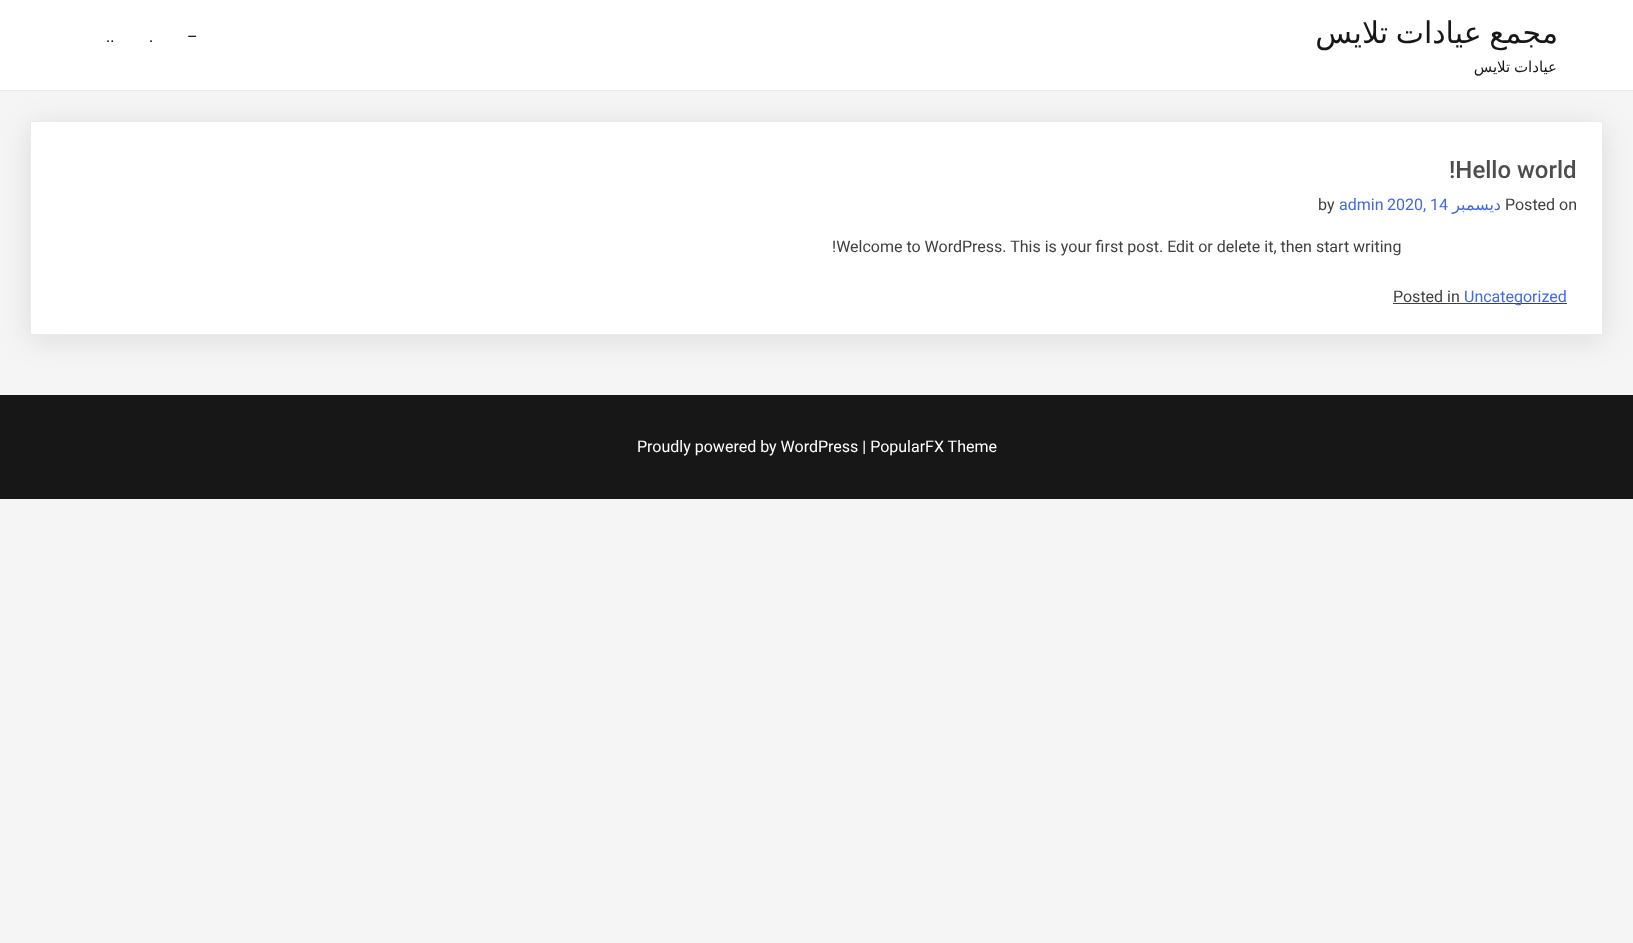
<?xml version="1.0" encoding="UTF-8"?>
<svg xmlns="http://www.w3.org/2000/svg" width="1633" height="943">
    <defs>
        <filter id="blur1" x="-50%" y="-200%" width="200%" height="500%"><feGaussianBlur stdDeviation="15"/></filter>
    </defs>
    <rect width="100%" height="100%" fill="#F5F5F5"/>
    <rect x="30" y="126" width="1573" height="214" fill="#000000" fill-opacity="0.1" filter="url(#blur1)"/>
    <rect x="0" y="0" width="1633" height="90" fill="#FFFFFF"/>
    <rect x="0" y="90" width="1633" height="1" fill="#EAEAEA"/>
    <text x="187" y="42" font-family="Roboto" font-size="16" fill="#000000">–</text>
    <text x="106" y="42" font-family="Roboto" font-size="16" fill="#000000">..</text>
    <text x="149" y="42" font-family="Roboto" font-size="16" fill="#000000">.</text>
    <text x="1558" y="43" word-spacing="-2" font-family="DejaVu Sans" font-size="30" direction="rtl" fill="#171717">مجمع عيادات تلايس</text>
    <text x="1557" y="72" word-spacing="-1" font-family="DejaVu Sans" font-size="15" direction="rtl" fill="#171717">عيادات تلايس</text>
    <rect x="30.5" y="121.5" width="1572" height="213" fill="#FFFFFF" stroke="#EAEAEA"/>
    <text x="1449" y="178" font-family="Roboto" font-size="24" font-weight="500" fill="#4D4D4D">!Hello world</text>
    <text x="1318" y="210" font-family="Roboto" font-size="16" fill="#404040">by</text>
    <text x="1339" y="210" font-family="Roboto" font-size="16" fill="#4169E1">admin</text>
    <text x="1387" y="210" font-family="Roboto" font-size="16" fill="#4169E1">2020, 14</text>
    <text x="1501" y="210" font-family="DejaVu Sans" font-size="16" direction="rtl" fill="#4169E1">ديسمبر</text>
    <text x="1505" y="210" font-family="Roboto" font-size="16" fill="#404040">Posted on</text>
    <text x="832" y="252" font-family="Roboto" font-size="16" fill="#404040">!Welcome to WordPress. This is your first post. Edit or delete it, then start writing</text>
    <text x="1393" y="302" font-family="Roboto" font-size="16" fill="#404040">Posted in</text>
    <rect x="1393" y="303" width="174" height="1" fill="#404040"/>
    <text x="1464" y="302" font-family="Roboto" font-size="16" fill="#4169E1">Uncategorized</text>
    <rect x="0" y="395" width="1633" height="104" fill="#171717"/>
    <text x="637" y="452" font-family="Roboto" font-size="16" fill="#FFFFFF">Proudly powered by WordPress | PopularFX Theme</text>
</svg>
